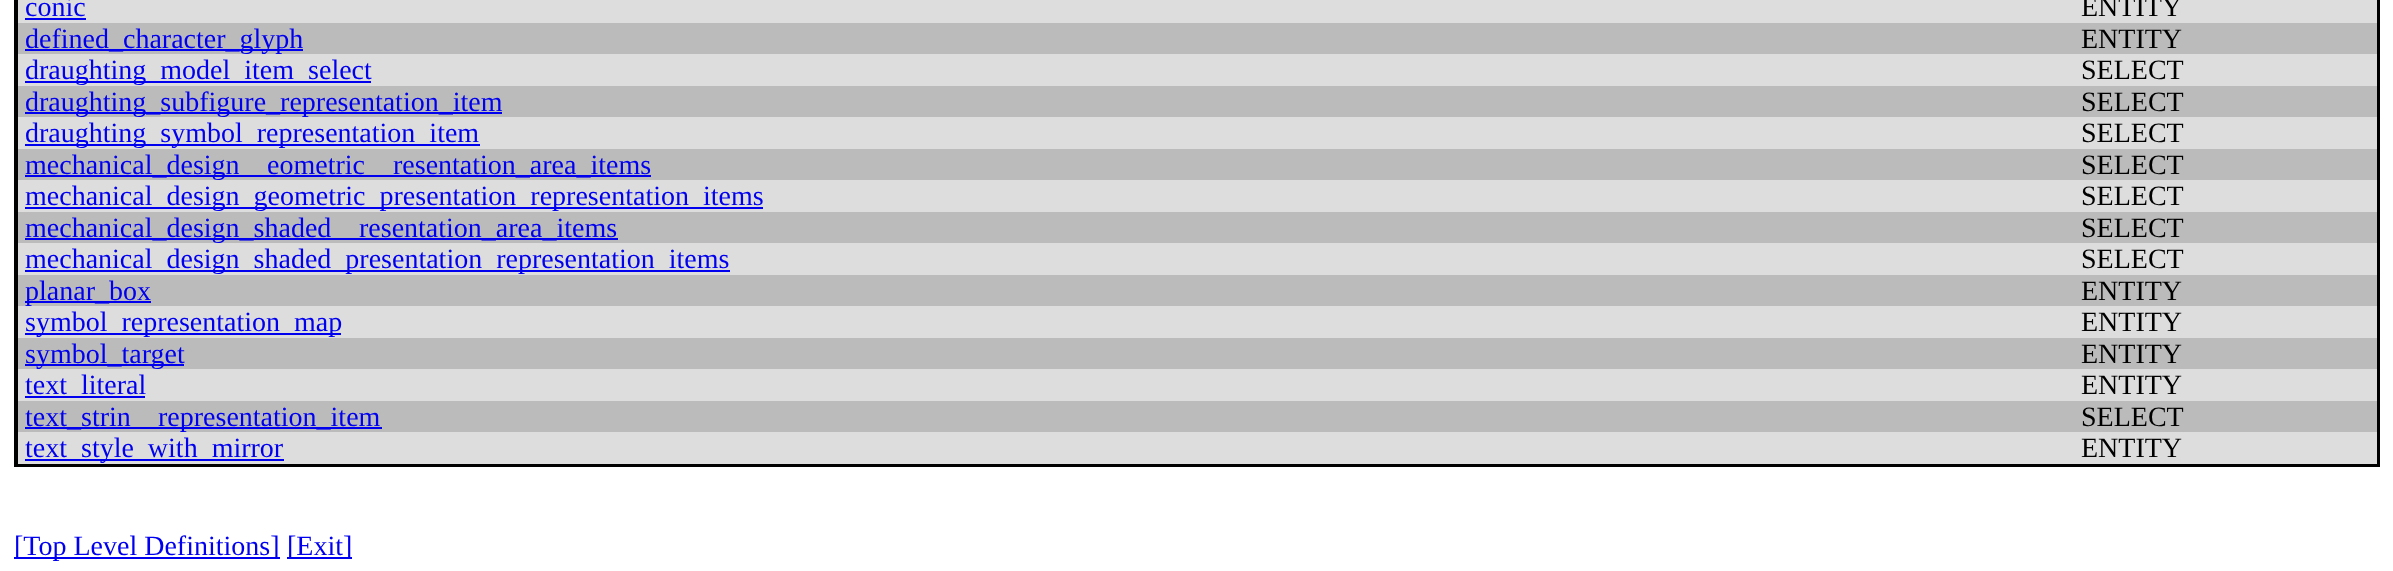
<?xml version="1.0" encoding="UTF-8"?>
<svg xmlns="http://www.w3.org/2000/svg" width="2393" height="571">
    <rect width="100%" height="100%" fill="#FFFFFF"/>
    <rect x="14" y="0" width="2366" height="467" fill="#000000"/>
    <rect x="18" y="0" width="2359" height="23" fill="#DDDDDD"/>
    <text x="25" y="16" font-family="Liberation Serif" font-size="28" fill="#0000EE">conic</text>
    <rect x="25" y="18" width="61" height="2" fill="#0000EE"/>
    <text x="2081" y="16" font-family="Liberation Serif" font-size="28" fill="#000000">ENTITY</text>
    <rect x="18" y="23" width="2359" height="31" fill="#BBBBBB"/>
    <rect x="25" y="49" width="278" height="2" fill="#0000EE"/>
    <rect x="18" y="54" width="2359" height="32" fill="#DDDDDD"/>
    <text x="25" y="48" font-family="Liberation Serif" font-size="28" fill="#0000EE">defined_character_glyph</text>
    <text x="2081" y="48" font-family="Liberation Serif" font-size="28" fill="#000000">ENTITY</text>
    <rect x="25" y="81" width="346" height="2" fill="#0000EE"/>
    <text x="25" y="79" font-family="Liberation Serif" font-size="28" fill="#0000EE">draughting_model_item_select</text>
    <text x="2081" y="79" font-family="Liberation Serif" font-size="28" fill="#000000">SELECT</text>
    <rect x="18" y="86" width="2359" height="31" fill="#BBBBBB"/>
    <rect x="25" y="112" width="477" height="2" fill="#0000EE"/>
    <rect x="18" y="117" width="2359" height="32" fill="#DDDDDD"/>
    <text x="25" y="111" font-family="Liberation Serif" font-size="28" fill="#0000EE">draughting_subfigure_representation_item</text>
    <text x="2081" y="111" font-family="Liberation Serif" font-size="28" fill="#000000">SELECT</text>
    <rect x="25" y="144" width="455" height="2" fill="#0000EE"/>
    <text x="25" y="142" font-family="Liberation Serif" font-size="28" fill="#0000EE">draughting_symbol_representation_item</text>
    <text x="2081" y="142" font-family="Liberation Serif" font-size="28" fill="#000000">SELECT</text>
    <rect x="18" y="149" width="2359" height="31" fill="#BBBBBB"/>
    <rect x="25" y="175" width="626" height="2" fill="#0000EE"/>
    <rect x="18" y="180" width="2359" height="32" fill="#DDDDDD"/>
    <text x="25" y="174" font-family="Liberation Serif" font-size="28" fill="#0000EE">mechanical_design</text>
    <text x="267" y="174" font-family="Liberation Serif" font-size="28" fill="#0000EE">eometric</text>
    <text x="393" y="174" font-family="Liberation Serif" font-size="28" fill="#0000EE">resentation_area_items</text>
    <text x="2081" y="174" font-family="Liberation Serif" font-size="28" fill="#000000">SELECT</text>
    <rect x="25" y="207" width="738" height="2" fill="#0000EE"/>
    <text x="25" y="205" font-family="Liberation Serif" font-size="28" fill="#0000EE">mechanical_design_geometric_presentation_representation_items</text>
    <text x="2081" y="205" font-family="Liberation Serif" font-size="28" fill="#000000">SELECT</text>
    <rect x="18" y="212" width="2359" height="31" fill="#BBBBBB"/>
    <rect x="25" y="238" width="593" height="2" fill="#0000EE"/>
    <rect x="18" y="243" width="2359" height="32" fill="#DDDDDD"/>
    <text x="25" y="237" font-family="Liberation Serif" font-size="28" fill="#0000EE">mechanical_design_shaded</text>
    <text x="359" y="237" font-family="Liberation Serif" font-size="28" fill="#0000EE">resentation_area_items</text>
    <text x="2081" y="237" font-family="Liberation Serif" font-size="28" fill="#000000">SELECT</text>
    <rect x="25" y="270" width="705" height="2" fill="#0000EE"/>
    <text x="25" y="268" font-family="Liberation Serif" font-size="28" fill="#0000EE">mechanical_design_shaded_presentation_representation_items</text>
    <text x="2081" y="268" font-family="Liberation Serif" font-size="28" fill="#000000">SELECT</text>
    <rect x="18" y="275" width="2359" height="31" fill="#BBBBBB"/>
    <rect x="25" y="301" width="126" height="2" fill="#0000EE"/>
    <text x="25" y="300" font-family="Liberation Serif" font-size="28" fill="#0000EE">planar_box</text>
    <text x="2081" y="300" font-family="Liberation Serif" font-size="28" fill="#000000">ENTITY</text>
    <rect x="18" y="306" width="2359" height="32" fill="#DDDDDD"/>
    <rect x="25" y="333" width="316" height="2" fill="#0000EE"/>
    <text x="25" y="331" font-family="Liberation Serif" font-size="28" fill="#0000EE">symbol_representation_map</text>
    <text x="2081" y="331" font-family="Liberation Serif" font-size="28" fill="#000000">ENTITY</text>
    <rect x="18" y="338" width="2359" height="31" fill="#BBBBBB"/>
    <rect x="25" y="364" width="159" height="2" fill="#0000EE"/>
    <rect x="18" y="369" width="2359" height="32" fill="#DDDDDD"/>
    <text x="25" y="363" font-family="Liberation Serif" font-size="28" fill="#0000EE">symbol_target</text>
    <text x="2081" y="363" font-family="Liberation Serif" font-size="28" fill="#000000">ENTITY</text>
    <rect x="25" y="396" width="120" height="2" fill="#0000EE"/>
    <text x="25" y="394" font-family="Liberation Serif" font-size="28" fill="#0000EE">text_literal</text>
    <text x="2081" y="394" font-family="Liberation Serif" font-size="28" fill="#000000">ENTITY</text>
    <rect x="18" y="401" width="2359" height="31" fill="#BBBBBB"/>
    <rect x="25" y="427" width="357" height="2" fill="#0000EE"/>
    <text x="25" y="426" font-family="Liberation Serif" font-size="28" fill="#0000EE">text_strin</text>
    <text x="158" y="426" font-family="Liberation Serif" font-size="28" fill="#0000EE">representation_item</text>
    <text x="2081" y="426" font-family="Liberation Serif" font-size="28" fill="#000000">SELECT</text>
    <rect x="18" y="432" width="2359" height="32" fill="#DDDDDD"/>
    <rect x="25" y="459" width="259" height="2" fill="#0000EE"/>
    <text x="25" y="457" font-family="Liberation Serif" font-size="28" fill="#0000EE">text_style_with_mirror</text>
    <text x="2081" y="457" font-family="Liberation Serif" font-size="28" fill="#000000">ENTITY</text>
    <rect x="14" y="557" width="266" height="2" fill="#0000EE"/>
    <text x="14" y="555" font-family="Liberation Serif" font-size="28" fill="#0000EE">[Top Level Definitions]</text>
    <rect x="287" y="557" width="65" height="2" fill="#0000EE"/>
    <text x="287" y="555" font-family="Liberation Serif" font-size="28" fill="#0000EE">[Exit]</text>
</svg>
